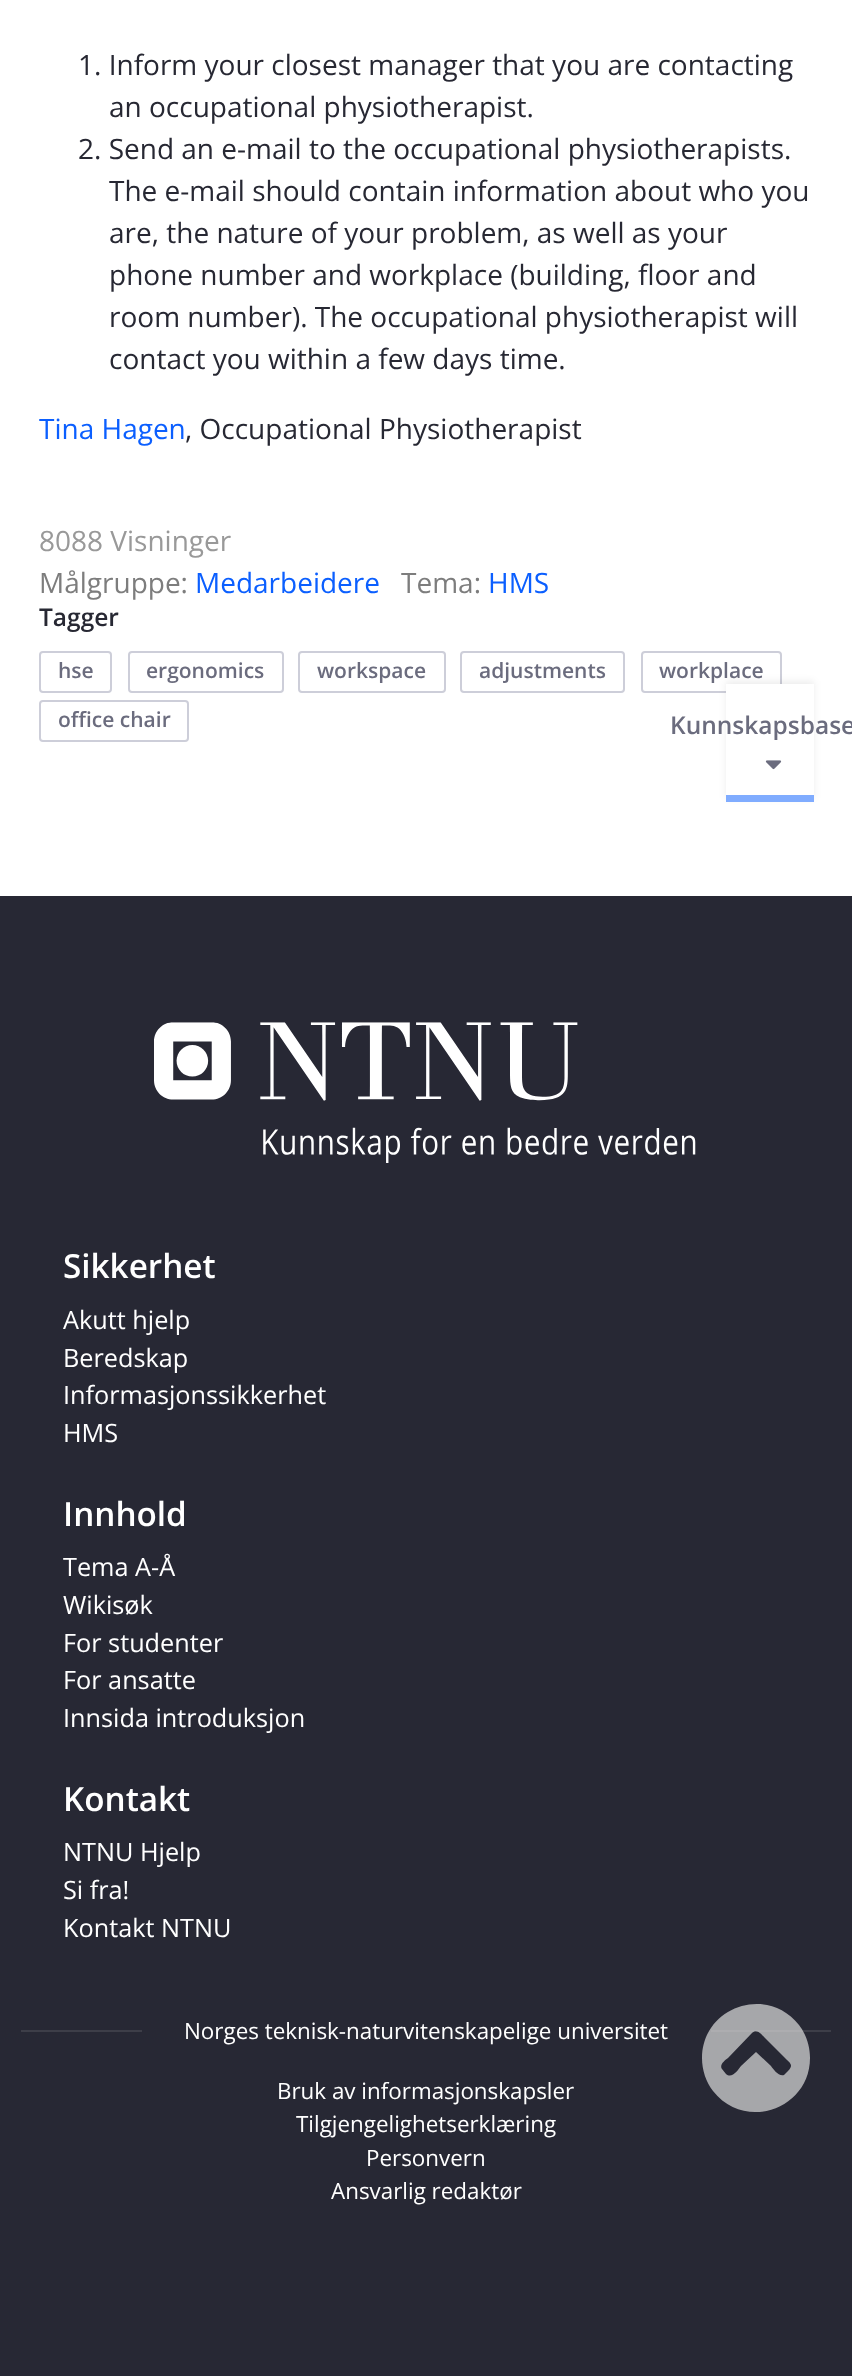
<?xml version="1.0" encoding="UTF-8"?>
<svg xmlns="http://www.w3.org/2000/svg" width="852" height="2376">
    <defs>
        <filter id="blur1" x="-50%" y="-200%" width="200%" height="500%"><feGaussianBlur stdDeviation="3.5"/></filter>
    </defs>
    <rect width="100%" height="100%" fill="#FFFFFF"/>
    <text x="78" y="75" font-family="Open Sans" font-size="28" fill="#272833">1. Inform your closest manager that you are contacting</text>
    <text x="109" y="117" font-family="Open Sans" font-size="28" fill="#272833">an occupational physiotherapist.</text>
    <text x="78" y="159" font-family="Open Sans" font-size="28" fill="#272833">2. Send an e-mail to the occupational physiotherapists.</text>
    <text font-family="Open Sans" font-size="28" fill="#272833">
        <tspan x="109" y="201">The e-mail should contain information about who you</tspan>
        <tspan x="109" y="243">are, the nature of your problem, as well as your</tspan>
        <tspan x="109" y="285">phone number and workplace (building, floor and</tspan>
        <tspan x="109" y="327">room number). The occupational physiotherapist will</tspan>
        <tspan x="109" y="369">contact you within a few days time.</tspan>
    </text>
    <text x="39" y="439" font-family="Open Sans" font-size="28" fill="#0B5FFF">Tina Hagen</text>
    <text x="185" y="439" font-family="Open Sans" font-size="28" fill="#272833">, Occupational Physiotherapist</text>
    <text x="39" y="551" font-family="Open Sans" font-size="28" fill="#999999">8088 Visninger</text>
    <text x="39" y="593" font-family="Open Sans" font-size="28" fill="#7D7D7D">Målgruppe:</text>
    <text x="195" y="593" font-family="Open Sans" font-size="28" fill="#0B5FFF">Medarbeidere</text>
    <text x="401" y="593" font-family="Open Sans" font-size="28" fill="#7D7D7D">Tema:</text>
    <text x="488" y="593" font-family="Open Sans" font-size="28" fill="#0B5FFF">HMS</text>
    <text x="39" y="626" font-family="Open Sans" font-size="24.5" font-weight="600" fill="#272833">Tagger</text>
    <rect x="40" y="652" width="71" height="40" rx="3" fill="none" stroke="#CDCED9" stroke-width="2"/>
    <text x="58" y="678" font-family="Open Sans" font-size="21" font-weight="600" fill="#6B6C7E">hse</text>
    <rect x="129" y="652" width="154" height="40" rx="3" fill="none" stroke="#CDCED9" stroke-width="2"/>
    <text x="146" y="678" font-family="Open Sans" font-size="21" font-weight="600" fill="#6B6C7E">ergonomics</text>
    <rect x="299" y="652" width="146" height="40" rx="3" fill="none" stroke="#CDCED9" stroke-width="2"/>
    <text x="317" y="678" font-family="Open Sans" font-size="21" font-weight="600" fill="#6B6C7E">workspace</text>
    <rect x="461" y="652" width="163" height="40" rx="3" fill="none" stroke="#CDCED9" stroke-width="2"/>
    <text x="479" y="678" font-family="Open Sans" font-size="21" font-weight="600" fill="#6B6C7E">adjustments</text>
    <rect x="642" y="652" width="139" height="40" rx="3" fill="none" stroke="#CDCED9" stroke-width="2"/>
    <text x="659" y="678" font-family="Open Sans" font-size="21" font-weight="600" fill="#6B6C7E">workplace</text>
    <rect x="40" y="701" width="148" height="40" rx="3" fill="none" stroke="#CDCED9" stroke-width="2"/>
    <text x="58" y="727" font-family="Open Sans" font-size="21" font-weight="600" fill="#6B6C7E">office chair</text>
    <rect x="726" y="681" width="88" height="117" fill="#000000" fill-opacity="0.07" filter="url(#blur1)"/>
    <rect x="726" y="684" width="88" height="111" fill="#FFFFFF"/>
    <text x="670" y="734" font-family="Open Sans" font-size="24.5" font-weight="600" fill="#6B6C7E">Kunnskapsbase</text>
    <image x="765" y="760" width="17" height="10" href="img_01.png"/>
    <rect x="726" y="795" width="88" height="7" fill="#80ACFF"/>
    <rect x="0" y="896" width="852" height="1480" fill="#272834"/>
    <image x="154" y="1022" width="542" height="141" href="img_02.png"/>
    <text x="63" y="1278" font-family="Open Sans" font-size="33.25" font-weight="600" fill="#FFFFFF">Sikkerhet</text>
    <text font-family="Open Sans" font-size="25.25" fill="#FFFFFF">
        <tspan x="63" y="1329">Akutt hjelp</tspan>
        <tspan x="63" y="1367">Beredskap</tspan>
        <tspan x="63" y="1404">Informasjonssikkerhet</tspan>
        <tspan x="63" y="1442">HMS</tspan>
    </text>
    <text x="63" y="1526" font-family="Open Sans" font-size="33.25" font-weight="600" fill="#FFFFFF">Innhold</text>
    <text font-family="Open Sans" font-size="25.25" fill="#FFFFFF">
        <tspan x="63" y="1576">Tema A-Å</tspan>
        <tspan x="63" y="1614">Wikisøk</tspan>
        <tspan x="63" y="1652">For studenter</tspan>
        <tspan x="63" y="1689">For ansatte</tspan>
        <tspan x="63" y="1727">Innsida introduksjon</tspan>
    </text>
    <text x="63" y="1811" font-family="Open Sans" font-size="33.25" font-weight="600" fill="#FFFFFF">Kontakt</text>
    <text font-family="Open Sans" font-size="25.25" fill="#FFFFFF">
        <tspan x="63" y="1861">NTNU Hjelp</tspan>
        <tspan x="63" y="1899">Si fra!</tspan>
        <tspan x="63" y="1937">Kontakt NTNU</tspan>
    </text>
    <rect x="21" y="2030" width="121" height="2" fill="#3D3E48"/>
    <text x="184" y="2039" font-family="Open Sans" font-size="22.4" fill="#FFFFFF">Norges teknisk-naturvitenskapelige universitet</text>
    <rect x="711" y="2030" width="120" height="2" fill="#3D3E48"/>
    <text x="277" y="2099" font-family="Open Sans" font-size="22.4" fill="#FFFFFF">Bruk av informasjonskapsler</text>
    <text x="296" y="2132" font-family="Open Sans" font-size="22.4" fill="#FFFFFF">Tilgjengelighetserklæring</text>
    <text x="366" y="2166" font-family="Open Sans" font-size="22.4" fill="#FFFFFF">Personvern</text>
    <text x="331" y="2199" font-family="Open Sans" font-size="22.4" fill="#FFFFFF">Ansvarlig redaktør</text>
    <path d="M 702 2058 C 702 2007 767 1984 799 2025 C 806 2034 810 2046 810 2058 C 810 2109 745 2132 713 2091 C 706 2082 702 2070 702 2058 Z M 752 2033 L 728 2058 C 725 2060 719 2065 722 2069 L 726 2074 C 732 2079 738 2070 741 2066 L 756 2052 L 771 2066 C 773 2069 779 2077 784 2075 L 788 2071 C 794 2065 790 2063 785 2058 L 765 2038 C 762 2035 757 2028 752 2033 Z" fill="#DDDDDD" fill-opacity="0.7"/>
</svg>
